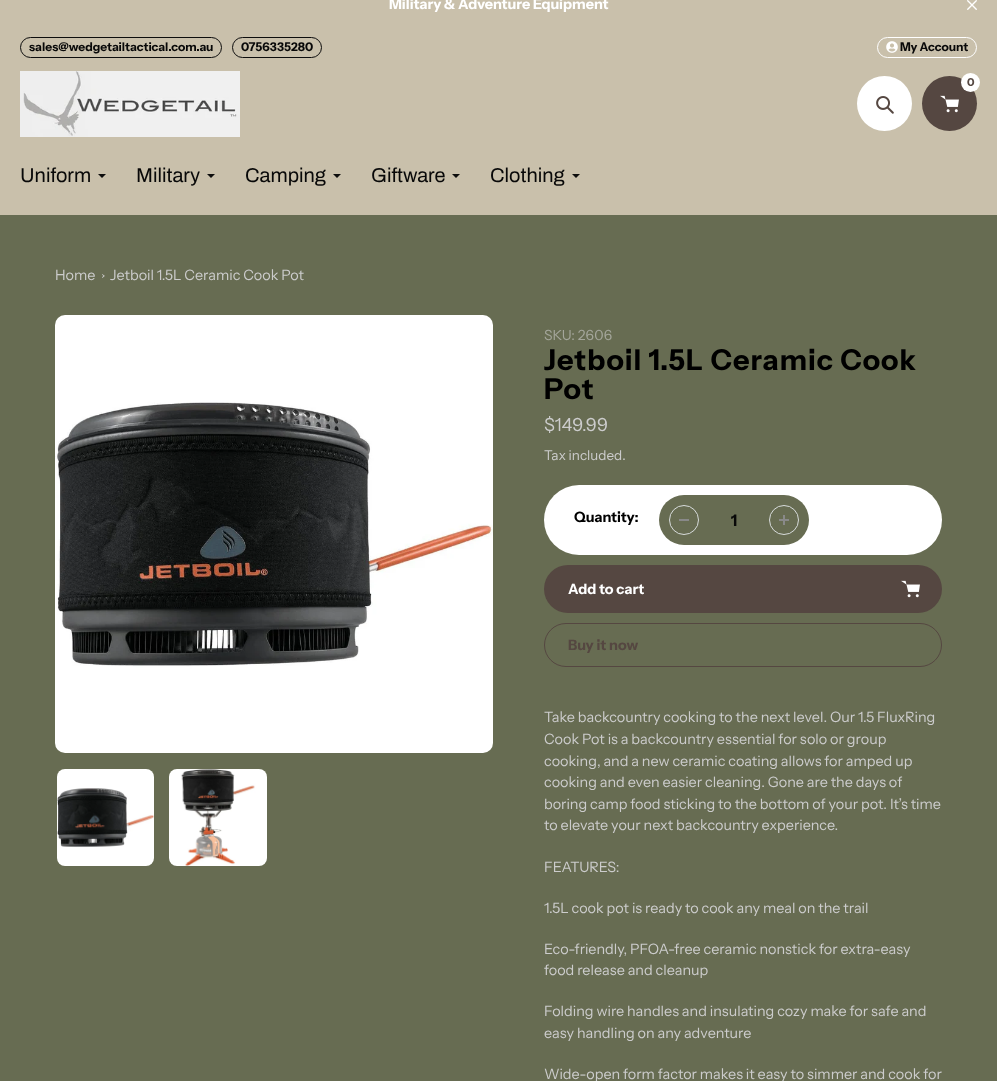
<?xml version="1.0" encoding="UTF-8"?>
<svg xmlns="http://www.w3.org/2000/svg" width="997" height="1081">
    <rect width="100%" height="100%" fill="#676C52"/>
    <rect x="0" y="0" width="997" height="215" fill="#C9C0AB"/>
    <text x="389" y="9" font-family="Instrument Sans" font-size="14.4" font-weight="700" fill="#FFFFFF">Military &amp; Adventure Equipment</text>
    <image x="967" y="0" width="10" height="10" href="img_01.png"/>
    <rect x="20.5" y="37.5" width="201" height="20" rx="10" fill="none" stroke="#0D0D0D"/>
    <text x="29" y="51" font-family="Instrument Sans" font-size="12" font-weight="700" fill="#080808">sales@wedgetailtactical.com.au</text>
    <rect x="232.5" y="37.5" width="89" height="20" rx="10" fill="none" stroke="#0D0D0D"/>
    <text x="241" y="51" font-family="Instrument Sans" font-size="12" font-weight="700" fill="#080808">0756335280</text>
    <rect x="877.5" y="37.5" width="99" height="20" rx="10" fill="none" stroke="#FFFFFF"/>
    <image x="886" y="41" width="12" height="12" href="img_02.png"/>
    <text x="900" y="51" font-family="Instrument Sans" font-size="12" font-weight="700" fill="#080808">My Account</text>
    <image x="20" y="71" width="220" height="66" href="img_03.png"/>
    <circle cx="884.5" cy="103.5" r="27.5" fill="#FFFFFF"/>
    <image x="876" y="96" width="18" height="18" href="img_04.png"/>
    <circle cx="949.5" cy="103.5" r="27.5" fill="#554741"/>
    <circle cx="970.5" cy="82.5" r="9.5" fill="#FFFFFF"/>
    <text x="967" y="86" font-family="Instrument Sans" font-size="11" font-weight="700" fill="#554741">0</text>
    <image x="940" y="95" width="19" height="18" href="img_05.png"/>
    <text x="20" y="182" font-family="Archivo" font-size="20" fill="#080808">Uniform</text>
    <path d="M 106 174 L 102 178 L 98 174" fill="#0D0D0D"/>
    <text x="136" y="182" font-family="Archivo" font-size="20" fill="#080808">Military</text>
    <path d="M 215 174 L 211 178 L 207 174" fill="#0D0D0D"/>
    <text x="245" y="182" font-family="Archivo" font-size="20" fill="#080808">Camping</text>
    <path d="M 341 174 L 337 178 L 333 174" fill="#0D0D0D"/>
    <text x="371" y="182" font-family="Archivo" font-size="20" fill="#080808">Giftware</text>
    <path d="M 460 174 L 456 178 L 452 174" fill="#0D0D0D"/>
    <text x="490" y="182" font-family="Archivo" font-size="20" fill="#080808">Clothing</text>
    <path d="M 580 174 L 576 178 L 572 174" fill="#0D0D0D"/>
    <text x="55" y="280" font-family="Instrument Sans" font-size="14.4" fill="#CCCCCC">Home</text>
    <path d="M 102.5 274 L 104.5 276 L 104 276.5 L 102 274.5 Z" fill="#CCCCCC"/>
    <path d="M 104 275 L 104.5 276 L 102.5 278 L 102 277.5 Z" fill="#CCCCCC"/>
    <text x="110" y="280" font-family="Instrument Sans" font-size="14.4" fill="#CCCCCC">Jetboil 1.5L Ceramic Cook Pot</text>
    <image x="55" y="315" width="438" height="438" href="img_06.png"/>
    <image x="57" y="769" width="97" height="97" href="img_07.png"/>
    <image x="169" y="769" width="98" height="97" href="img_08.png"/>
    <text x="544" y="340" font-family="Instrument Sans" font-size="14" fill="#A4A69B">SKU: 2606</text>
    <text font-family="Instrument Sans" font-size="28.75" font-weight="700" letter-spacing="1" fill="#000000">
        <tspan x="544" y="370">Jetboil 1.5L Ceramic Cook</tspan>
        <tspan x="544" y="399">Pot</tspan>
    </text>
    <text x="544" y="431" font-family="Instrument Sans" font-size="18" fill="#CCCCCC">$149.99</text>
    <text x="544" y="460" font-family="Instrument Sans" font-size="13.5" fill="#CCCCCC">Tax included.</text>
    <rect x="544" y="485" width="398" height="70" rx="35" fill="#FFFFFF"/>
    <text x="574" y="522" font-family="Instrument Sans" font-size="14.4" font-weight="700" fill="#000000">Quantity:</text>
    <rect x="659" y="495" width="150" height="50" rx="25" fill="#676C52"/>
    <rect x="679" y="519" width="10" height="2" fill="#898989"/>
    <circle cx="684" cy="520" r="14.5" fill="none" stroke="#D7DBDB"/>
    <text x="731" y="526" font-family="Instrument Sans" font-size="16" font-weight="700" fill="#080808">1</text>
    <image x="779" y="515" width="10" height="10" href="img_09.png"/>
    <circle cx="784" cy="520" r="14.5" fill="none" stroke="#D7DBDB"/>
    <rect x="544" y="565" width="398" height="48" rx="24" fill="#554741"/>
    <text x="568" y="594" font-family="Instrument Sans" font-size="14.4" font-weight="700" fill="#FFFFFF">Add to cart</text>
    <image x="901" y="580" width="19" height="18" href="img_05.png"/>
    <rect x="544.5" y="623.5" width="397" height="43" rx="21.5" fill="none" stroke="#554741"/>
    <text x="568" y="650" font-family="Instrument Sans" font-size="14.4" font-weight="700" fill="#554741">Buy it now</text>
    <text font-family="Instrument Sans" font-size="14.4" fill="#CCCCCC">
        <tspan x="544" y="722">Take backcountry cooking to the next level. Our 1.5 FluxRing</tspan>
        <tspan x="544" y="744">Cook Pot is a backcountry essential for solo or group</tspan>
        <tspan x="544" y="766">cooking, and a new ceramic coating allows for amped up</tspan>
        <tspan x="544" y="787">cooking and even easier cleaning. Gone are the days of</tspan>
        <tspan x="544" y="809">boring camp food sticking to the bottom of your pot. It’s time</tspan>
        <tspan x="544" y="830">to elevate your next backcountry experience.</tspan>
    </text>
    <text x="544" y="872" font-family="Instrument Sans" font-size="14.4" fill="#CCCCCC">FEATURES:</text>
    <text x="544" y="913" font-family="Instrument Sans" font-size="14.4" fill="#CCCCCC">1.5L cook pot is ready to cook any meal on the trail</text>
    <text font-family="Instrument Sans" font-size="14.4" fill="#CCCCCC">
        <tspan x="544" y="954">Eco-friendly, PFOA-free ceramic nonstick for extra-easy</tspan>
        <tspan x="544" y="975">food release and cleanup</tspan>
    </text>
    <text font-family="Instrument Sans" font-size="14.4" fill="#CCCCCC">
        <tspan x="544" y="1016">Folding wire handles and insulating cozy make for safe and</tspan>
        <tspan x="544" y="1038">easy handling on any adventure</tspan>
    </text>
    <text x="544" y="1079" font-family="Instrument Sans" font-size="14.4" fill="#CCCCCC">Wide-open form factor makes it easy to simmer and cook for</text>
</svg>
